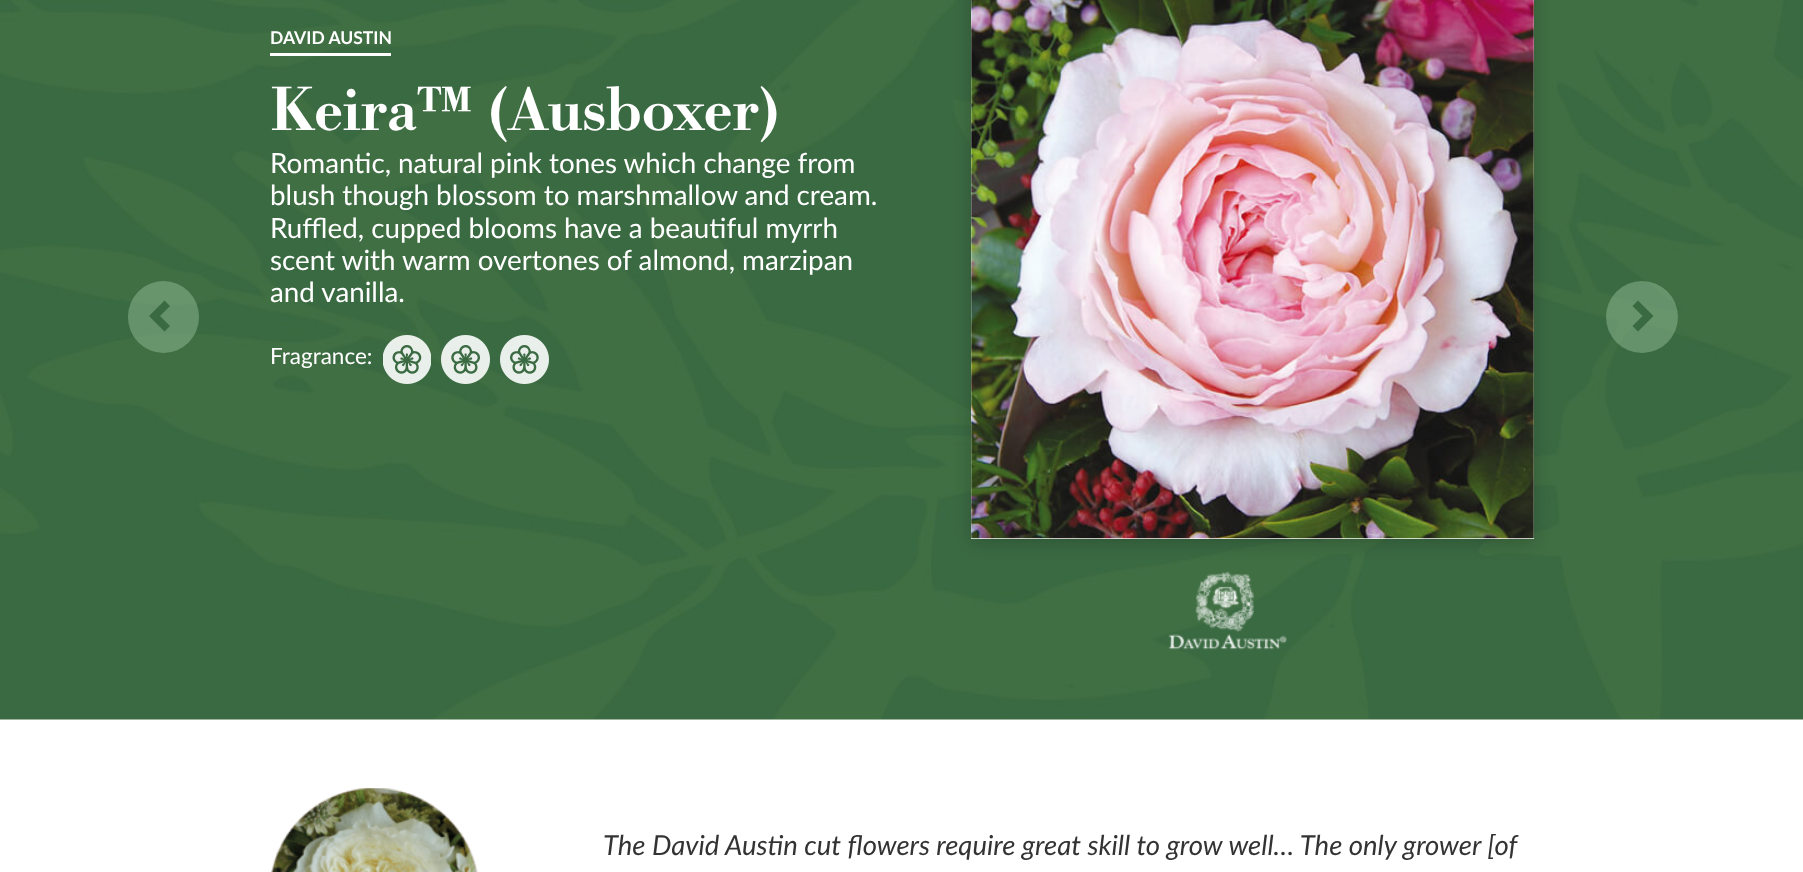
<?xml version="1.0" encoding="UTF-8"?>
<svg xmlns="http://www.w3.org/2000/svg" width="1803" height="872">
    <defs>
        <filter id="blur1" x="-50%" y="-200%" width="200%" height="500%"><feGaussianBlur stdDeviation="9.5"/></filter>
    </defs>
    <rect width="100%" height="100%" fill="#FFFFFF"/>
    <image x="0" y="0" width="1803" height="720" href="img_01.png"/>
    <rect x="128" y="281" width="71" height="72" rx="35.5" fill="#C0E5C5" fill-opacity="0.32"/>
    <path d="M 170 306 L 160 316 L 170 326 L 164.5 331.5 L 149 316 L 164.5 300.5 Z" fill="#3A6A41"/>
    <text x="270" y="44" font-family="Lato" font-size="17.5" font-weight="700" fill="#FFFFFF">DAVID AUSTIN</text>
    <rect x="270" y="53" width="121" height="3" fill="#FFFFFF"/>
    <text x="270" y="130" font-family="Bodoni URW" font-size="65" font-weight="500" fill="#FFFFFF">Keira™ (Ausboxer)</text>
    <text font-family="Lato" font-size="27.8" fill="#FFFFFF">
        <tspan x="270" y="173">Romantic, natural pink tones which change from</tspan>
        <tspan x="270" y="205">blush though blossom to marshmallow and cream.</tspan>
        <tspan x="270" y="238">Ruffled, cupped blooms have a beautiful myrrh</tspan>
        <tspan x="270" y="270">scent with warm overtones of almond, marzipan</tspan>
        <tspan x="270" y="302">and vanilla.</tspan>
    </text>
    <text x="270" y="364" font-family="Lato" font-size="22.5" fill="#FFFFFF">Fragrance:</text>
    <image x="383" y="335" width="48" height="49" href="img_02.png"/>
    <image x="441" y="335" width="49" height="49" href="img_03.png"/>
    <image x="500" y="335" width="49" height="49" href="img_04.png"/>
    <rect x="971" y="-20" width="563" height="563" fill="#000000" fill-opacity="0.2" filter="url(#blur1)"/>
    <rect x="971" y="0" width="563" height="539" fill="#FFFFFF"/>
    <image x="971" y="0" width="563" height="539" href="img_05.png"/>
    <image x="1168" y="571" width="119" height="79" href="img_06.png"/>
    <circle cx="1642" cy="317" r="36" fill="#C0E5C5" fill-opacity="0.32"/>
    <path d="M 1653.5 316 L 1638 331.5 L 1632.5 326 L 1642.5 316 L 1632.5 306 L 1638 300.5 Z" fill="#3A6A41"/>
    <image x="271" y="788" width="207" height="84" href="img_07.png"/>
    <text x="603" y="855" font-family="Lato" font-size="27.5" font-style="italic" fill="#333333">The David Austin cut flowers require great skill to grow well… The only grower [of</text>
</svg>
